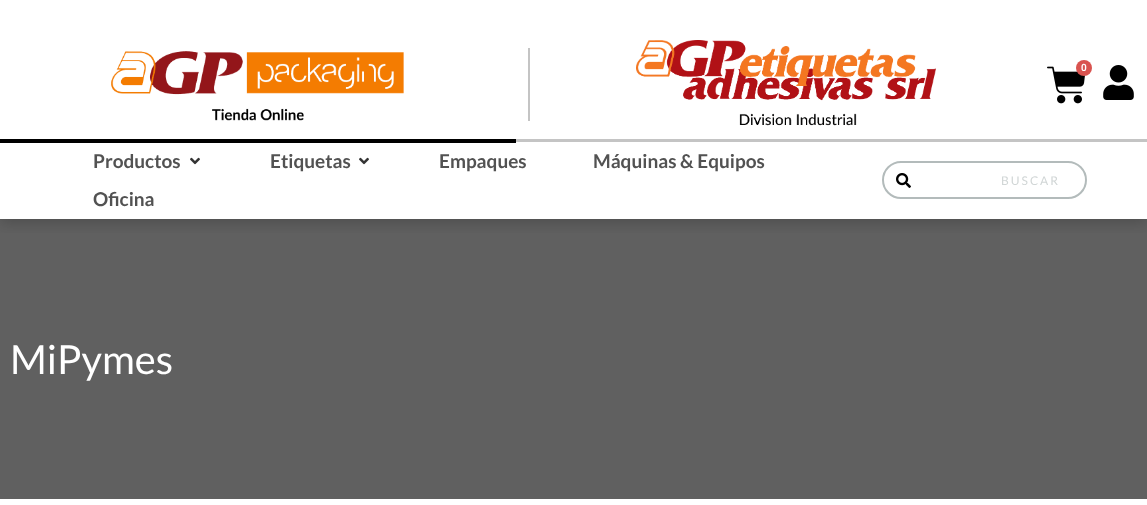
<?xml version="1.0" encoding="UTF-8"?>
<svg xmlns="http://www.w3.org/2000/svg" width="1147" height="505">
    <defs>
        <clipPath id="clip1"><rect x="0" y="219" width="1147" height="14"/></clipPath>
        <filter id="blur1" x="-50%" y="-200%" width="200%" height="500%"><feGaussianBlur stdDeviation="7.5"/></filter>
    </defs>
    <rect width="100%" height="100%" fill="#FFFFFF"/>
    <rect x="0" y="219" width="1147" height="280" fill="#606060"/>
    <g clip-path="url(#clip1)">
        <rect x="0" y="146" width="1147" height="77" fill="#000000" fill-opacity="0.2" filter="url(#blur1)"/>
    </g>
    <rect x="0" y="134" width="1147" height="5" fill="#FFFFFF"/>
    <rect x="516" y="139" width="631" height="3" fill="#C4C4C4"/>
    <rect x="0" y="139" width="516" height="4" fill="#000000"/>
    <image x="111" y="51" width="293" height="70" href="img_01.png"/>
    <rect x="528" y="48" width="2" height="73" fill="#C4C4C4"/>
    <image x="636" y="40" width="300" height="86" href="img_02.png"/>
    <image x="1047" y="66" width="38" height="38" href="img_03.png"/>
    <circle cx="1084" cy="68" r="8" fill="#D9534F"/>
    <text x="1081" y="71" font-family="Roboto" font-size="10" font-weight="600" fill="#FFFFFF">0</text>
    <image x="1103" y="65" width="31" height="35" href="img_04.png"/>
    <text x="93" y="168" font-family="Lato" font-size="19" font-weight="700" fill="#525252">Productos</text>
    <image x="190" y="157" width="10" height="8" href="img_05.png"/>
    <text x="270" y="168" font-family="Lato" font-size="19" font-weight="700" fill="#525252">Etiquetas</text>
    <image x="359" y="157" width="10" height="8" href="img_05.png"/>
    <text x="439" y="168" font-family="Lato" font-size="19" font-weight="700" fill="#525252">Empaques</text>
    <text x="593" y="168" font-family="Lato" font-size="19" font-weight="700" fill="#525252">Máquinas &amp; Equipos</text>
    <text x="93" y="206" font-family="Lato" font-size="19" font-weight="700" fill="#525252">Oficina</text>
    <rect x="883" y="162" width="203" height="36" rx="18" fill="none" stroke="#B3BBBB" stroke-width="2"/>
    <image x="896" y="173" width="15" height="15" href="img_06.png"/>
    <text x="1001" y="185" font-family="Lato" font-size="12" letter-spacing="2" fill="#D1D6D6">BUSCAR</text>
    <text x="10" y="374" font-family="Lato" font-size="40" fill="#FFFFFF">MiPymes</text>
</svg>
